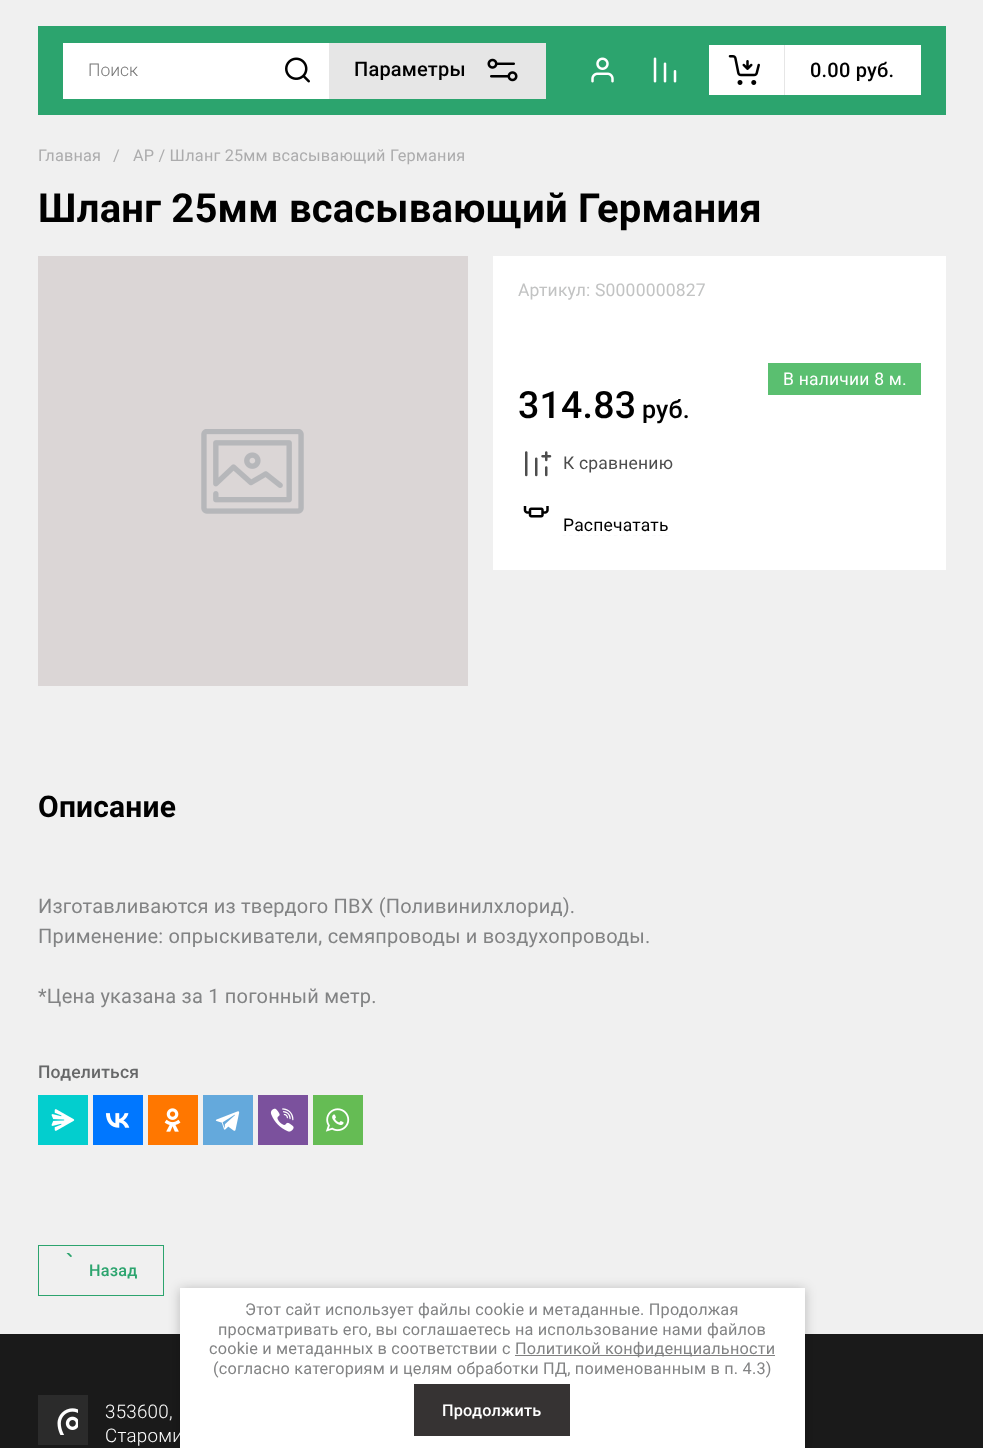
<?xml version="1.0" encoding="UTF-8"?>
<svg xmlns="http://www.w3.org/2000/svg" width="983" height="1448">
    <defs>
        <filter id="blur1" x="-50%" y="-200%" width="200%" height="500%"><feGaussianBlur stdDeviation="6"/></filter>
    </defs>
    <rect width="100%" height="100%" fill="#F0F0F0"/>
    <rect x="38" y="26" width="908" height="89" fill="#2CA46E"/>
    <rect x="63" y="43" width="266" height="56" fill="#FFFFFF"/>
    <text x="88" y="76" font-family="Roboto" font-size="17.5" font-weight="300" fill="#757575">Поиск</text>
    <image x="285" y="57" width="25" height="26" href="img_01.png"/>
    <rect x="329" y="43" width="217" height="56" fill="#E6E6E6"/>
    <text x="354" y="76" font-family="Roboto" font-size="20" font-weight="500" letter-spacing="0.2" fill="#000000">Параметры</text>
    <image x="487" y="58" width="31" height="24" href="img_02.png"/>
    <image x="591" y="57" width="23" height="26" href="img_03.png"/>
    <image x="653" y="57" width="24" height="26" href="img_04.png"/>
    <rect x="709" y="45" width="212" height="50" fill="#FFFFFF"/>
    <image x="728" y="55" width="32" height="30" href="img_05.png"/>
    <rect x="784" y="45" width="1" height="50" fill="#E6E6E6"/>
    <text x="810" y="77" font-family="Roboto" font-size="20" font-weight="500" letter-spacing="0.2" fill="#000000">0.00 руб.</text>
    <text x="38" y="161" font-family="Roboto" font-size="16.25" letter-spacing="0.2" fill="#ACACAD">Главная</text>
    <text x="113" y="161" font-family="Roboto" font-size="16.25" letter-spacing="0.2" fill="#ACACAD">/</text>
    <text x="133" y="161" font-family="Roboto" font-size="16.25" letter-spacing="0.2" fill="#ACACAD">AP / Шланг 25мм всасывающий Германия</text>
    <text x="38" y="222" font-family="Roboto" font-size="40" font-weight="700" letter-spacing="0.2" fill="#000000">Шланг 25мм всасывающий Германия</text>
    <rect x="38" y="256" width="430" height="430" fill="#DBD6D6"/>
    <image x="201" y="429" width="103" height="85" href="img_06.png"/>
    <rect x="493" y="256" width="453" height="314" fill="#FFFFFF"/>
    <text x="518" y="296" font-family="Roboto" font-size="17.5" letter-spacing="0.2" fill="#C2C3C3">Артикул: S0000000827</text>
    <rect x="768" y="363" width="153" height="32" fill="#5ABF70"/>
    <text x="783" y="385" font-family="Roboto" font-size="17.5" letter-spacing="0.2" fill="#FFFFFF">В наличии 8 м.</text>
    <text x="518" y="418" font-family="Roboto" font-size="37.5" font-weight="500" letter-spacing="0.2" fill="#000000">314.83</text>
    <text x="642" y="418" font-family="Roboto" font-size="25" font-weight="500" letter-spacing="0.2" fill="#000000">руб.</text>
    <image x="525" y="451" width="27" height="26" href="img_07.png"/>
    <text x="563" y="469" font-family="Roboto" font-size="17.5" letter-spacing="0.2" fill="#4D4D4D">К сравнению</text>
    <image x="523" y="506" width="26" height="12" href="img_08.png"/>
    <text x="563" y="531" font-family="Roboto" font-size="17.5" letter-spacing="0.2" fill="#000000">Распечатать</text>
    <path d="M 562.5 535.5 H 669" fill="none" stroke="#FAFAFB" stroke-width="1.2" stroke-dasharray="3.75 2.65"/>
    <text x="38" y="817" font-family="Roboto" font-size="30" font-weight="700" letter-spacing="0.2" fill="#000000">Описание</text>
    <text font-family="Roboto" font-size="20" letter-spacing="0.2" fill="#828384">
        <tspan x="38" y="913">Изготавливаются из твердого ПВХ (Поливинилхлорид).</tspan>
        <tspan x="38" y="943">Применение: опрыскиватели, семяпроводы и воздухопроводы.</tspan>
    </text>
    <text x="38" y="1003" font-family="Roboto" font-size="20" letter-spacing="0.2" fill="#828384">*Цена указана за 1 погонный метр.</text>
    <text x="38" y="1078" font-family="Roboto" font-size="17.5" font-weight="500" letter-spacing="0.2" fill="#676869">Поделиться</text>
    <rect x="38" y="1095" width="50" height="50" fill="#03CECE"/>
    <image x="51" y="1109" width="24" height="22" href="img_09.png"/>
    <rect x="93" y="1095" width="50" height="50" fill="#0077FF"/>
    <image x="105" y="1113" width="25" height="15" href="img_10.png"/>
    <rect x="148" y="1095" width="50" height="50" fill="#FF7700"/>
    <image x="164" y="1108" width="17" height="24" href="img_11.png"/>
    <rect x="203" y="1095" width="50" height="50" fill="#64A9DC"/>
    <image x="215" y="1111" width="25" height="20" href="img_12.png"/>
    <rect x="258" y="1095" width="50" height="50" fill="#7B519D"/>
    <image x="270" y="1108" width="24" height="24" href="img_13.png"/>
    <rect x="313" y="1095" width="50" height="50" fill="#65BC54"/>
    <image x="325" y="1108" width="25" height="24" href="img_14.png"/>
    <rect x="38.5" y="1245.5" width="125" height="50" fill="none" stroke="#2CA46E"/>
    <image x="66" y="1253" width="6" height="4" href="img_15.png"/>
    <text x="89" y="1276" font-family="Roboto" font-size="16.25" font-weight="500" letter-spacing="0.2" fill="#2CA46E">Назад</text>
    <rect x="0" y="1334" width="983" height="114" fill="#1A1A1A"/>
    <rect x="38" y="1395" width="50" height="50" fill="#2B2B2B"/>
    <image x="57" y="1408" width="21" height="27" href="img_16.png"/>
    <text font-family="Roboto" font-size="18.75" font-weight="300" letter-spacing="0.25" fill="#FFFFFF">
        <tspan x="105" y="1418">353600,</tspan>
        <tspan x="105" y="1442">Староми</tspan>
    </text>
    <rect x="180" y="1289" width="625" height="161" fill="#000000" fill-opacity="0.23" filter="url(#blur1)"/>
    <rect x="180" y="1288" width="625" height="160" fill="#FFFFFF"/>
    <text x="245" y="1315" font-family="Roboto" font-size="16.25" letter-spacing="0.2" fill="#828384">Этот сайт использует файлы cookie и метаданные. Продолжая</text>
    <text x="218" y="1335" font-family="Roboto" font-size="16.25" letter-spacing="0.2" fill="#828384">просматривать его, вы соглашаетесь на использование нами файлов</text>
    <text x="209" y="1354" font-family="Roboto" font-size="16.25" letter-spacing="0.2" fill="#828384">cookie и метаданных в соответствии с</text>
    <rect x="515" y="1355" width="260" height="1" fill="#808080"/>
    <text x="515" y="1354" font-family="Roboto" font-size="16.25" letter-spacing="0.2" fill="#828384">Политикой конфиденциальности</text>
    <text x="213" y="1374" font-family="Roboto" font-size="16.25" letter-spacing="0.2" fill="#828384">(согласно категориям и целям обработки ПД, поименованным в п. 4.3)</text>
    <rect x="414" y="1384" width="156" height="52" fill="#363333"/>
    <text x="442" y="1416" font-family="Roboto" font-size="16.25" font-weight="500" letter-spacing="0.2" fill="#FFFFFF">Продолжить</text>
</svg>
